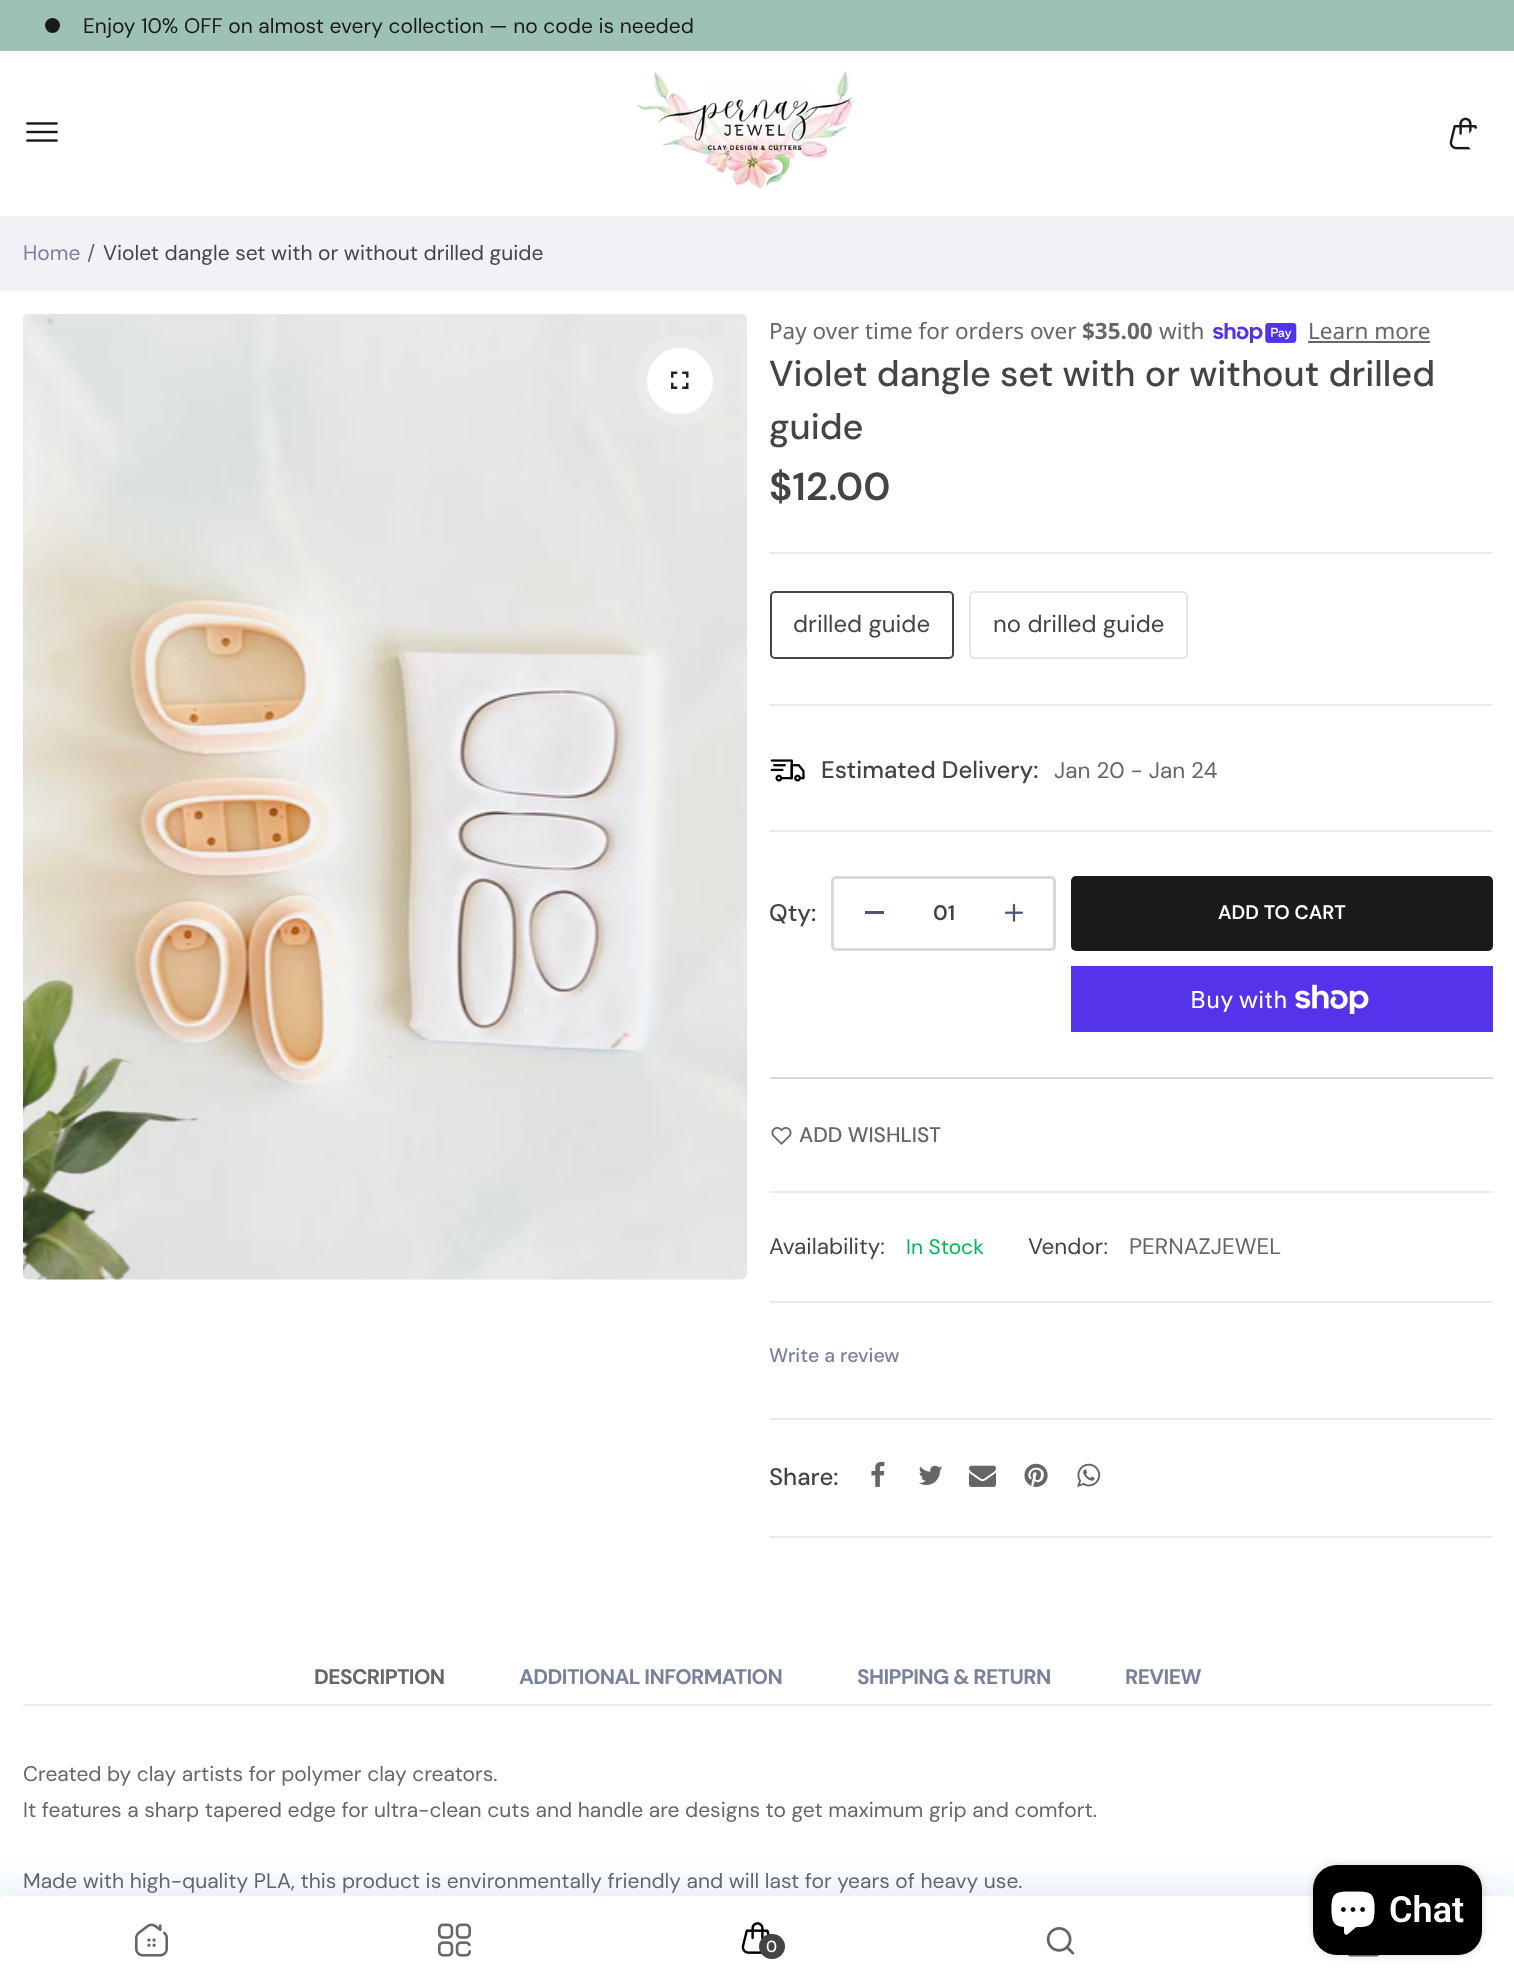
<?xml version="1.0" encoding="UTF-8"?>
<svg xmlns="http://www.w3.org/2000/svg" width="1514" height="1985">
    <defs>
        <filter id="blur1" x="-50%" y="-200%" width="200%" height="500%"><feGaussianBlur stdDeviation="19"/></filter>
        <filter id="blur2" x="-50%" y="-200%" width="200%" height="500%"><feGaussianBlur stdDeviation="4"/></filter>
    </defs>
    <rect width="100%" height="100%" fill="#FFFFFF"/>
    <rect x="0" y="0" width="1514" height="51" fill="#9DC1B6"/>
    <circle cx="52.5" cy="25.5" r="7.5" fill="#1A1A1A"/>
    <text x="83" y="33" font-family="DM Sans" font-size="21" fill="#1A1A1A">Enjoy 10% OFF on almost every collection — no code is needed</text>
    <image x="26" y="122" width="32" height="20" href="img_01.png"/>
    <image x="637" y="71" width="215" height="118" href="img_02.png"/>
    <image x="1449" y="117" width="29" height="33" href="img_03.png"/>
    <rect x="1467" y="128" width="26" height="25" rx="12.5" fill="#FFFFFF"/>
    <rect x="0" y="216" width="1514" height="75" fill="#F2F2F6"/>
    <text x="23" y="260" font-family="DM Sans" font-size="21" fill="#79819C">Home</text>
    <text x="87" y="260" font-family="DM Sans" font-size="21" fill="#666666">/</text>
    <text x="103" y="260" font-family="DM Sans" font-size="21" fill="#444444">Violet dangle set with or without drilled guide</text>
    <image x="23" y="314" width="724" height="966" href="img_04.png"/>
    <circle cx="680" cy="381" r="39" fill="#FFFFFF" stroke="#EAEBED" stroke-width="12"/>
    <image x="671" y="371" width="18" height="18" href="img_05.png"/>
    <text x="769" y="339" font-family="Noto Sans" font-size="22.5" fill="#666666">Pay over time for orders over</text>
    <text x="1082" y="339" font-family="Noto Sans" font-size="22.5" font-weight="700" fill="#666666">$35.00</text>
    <text x="1159" y="339" font-family="Noto Sans" font-size="22.5" fill="#666666">with</text>
    <image x="1213" y="323" width="84" height="21" href="img_06.png"/>
    <text x="1308" y="339" font-family="Noto Sans" font-size="22.5" fill="#666666">Learn more</text>
    <rect x="1308" y="341" width="122" height="2" fill="#666666"/>
    <text font-family="DM Sans" font-size="36" font-weight="500" fill="#444444">
        <tspan x="769" y="386">Violet dangle set with or without drilled</tspan>
        <tspan x="769" y="439">guide</tspan>
    </text>
    <rect x="770" y="552" width="723" height="2" fill="#E6ECF0"/>
    <text x="769" y="500" font-family="DM Sans" font-size="39" font-weight="600" fill="#444444">$12.00</text>
    <rect x="770" y="704" width="723" height="2" fill="#E6ECF0"/>
    <rect x="771" y="592" width="182" height="66" rx="4" fill="none" stroke="#444444" stroke-width="2"/>
    <text x="793" y="632" font-family="DM Sans" font-size="24" fill="#444444">drilled guide</text>
    <rect x="970" y="592" width="217" height="66" rx="4" fill="none" stroke="#E5E5E5" stroke-width="2"/>
    <text x="993" y="632" font-family="DM Sans" font-size="24" fill="#444444">no drilled guide</text>
    <rect x="770" y="830" width="723" height="2" fill="#E6ECF0"/>
    <image x="770" y="759" width="35" height="23" href="img_07.png"/>
    <text x="821" y="778" font-family="DM Sans" font-size="24" font-weight="500" fill="#444444">Estimated Delivery:</text>
    <text x="1054" y="778" font-family="DM Sans" font-size="22.5" fill="#666666">Jan 20 - Jan 24</text>
    <rect x="770" y="1077" width="723" height="2" fill="#D9D9D9"/>
    <text x="769" y="921" font-family="DM Sans" font-size="24" font-weight="500" fill="#444444">Qty:</text>
    <rect x="832.5" y="877.5" width="222" height="72" rx="3.5" fill="none" stroke="#D9D9D9" stroke-width="3"/>
    <rect x="865" y="911" width="19" height="3" fill="#4D5574"/>
    <text x="933" y="920" font-family="DM Sans" font-size="21" font-weight="600" fill="#444444">01</text>
    <image x="1005" y="903" width="18" height="19" href="img_08.png"/>
    <rect x="1071" y="876" width="422" height="75" rx="5" fill="#1A1A1A"/>
    <text x="1218" y="919" font-family="DM Sans" font-size="19.5" font-weight="600" fill="#FFFFFF">ADD TO CART</text>
    <rect x="1071" y="966" width="422" height="66" fill="#5433EB"/>
    <text x="1190" y="1008" font-family="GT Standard" font-size="24" fill="#FFFFFF">Buy with</text>
    <image x="1295" y="984" width="74" height="30" href="img_09.png"/>
    <rect x="770" y="1191" width="723" height="2" fill="#E6ECF0"/>
    <image x="771" y="1127" width="21" height="18" href="img_10.png"/>
    <text x="799" y="1142" font-family="DM Sans" font-size="21" font-weight="500" fill="#666666">ADD WISHLIST</text>
    <rect x="770" y="1301" width="723" height="2" fill="#E6ECF0"/>
    <text x="769" y="1254" font-family="DM Sans" font-size="22.5" fill="#444444">Availability:</text>
    <text x="906" y="1254" font-family="DM Sans" font-size="21" fill="#00B853">In Stock</text>
    <text x="1028" y="1254" font-family="DM Sans" font-size="22.5" fill="#444444">Vendor:</text>
    <text x="1129" y="1254" font-family="DM Sans" font-size="22.5" fill="#666666">PERNAZJEWEL</text>
    <rect x="770" y="1418" width="723" height="2" fill="#E6ECF0"/>
    <text x="769" y="1362" font-family="DM Sans" font-size="19.5" font-weight="500" fill="#79819C">Write a review</text>
    <rect x="770" y="1536" width="723" height="2" fill="#E6ECF0"/>
    <text x="769" y="1485" font-family="DM Sans" font-size="24" font-weight="500" fill="#444444">Share:</text>
    <image x="871" y="1461" width="14" height="26" href="img_11.png"/>
    <image x="918" y="1465" width="25" height="20" href="img_12.png"/>
    <image x="969" y="1465" width="27" height="22" href="img_13.png"/>
    <image x="1024" y="1463" width="24" height="24" href="img_14.png"/>
    <image x="1077" y="1463" width="24" height="24" href="img_15.png"/>
    <rect x="23" y="1704" width="1470" height="2" fill="#E6ECF0"/>
    <text x="314" y="1684" font-family="DM Sans" font-size="21" font-weight="700" letter-spacing="-0.6" fill="#666666">DESCRIPTION</text>
    <text x="519" y="1684" font-family="DM Sans" font-size="21" font-weight="700" letter-spacing="-0.6" fill="#79819C">ADDITIONAL INFORMATION</text>
    <text x="857" y="1684" font-family="DM Sans" font-size="21" font-weight="700" letter-spacing="-0.6" fill="#79819C">SHIPPING &amp; RETURN</text>
    <text x="1125" y="1684" font-family="DM Sans" font-size="21" font-weight="700" letter-spacing="-0.6" fill="#79819C">REVIEW</text>
    <text font-family="DM Sans" font-size="21" fill="#666666">
        <tspan x="23" y="1781">Created by clay artists for polymer clay creators.</tspan>
        <tspan x="23" y="1817">It features a sharp tapered edge for ultra-clean cuts and handle are designs to get maximum grip and comfort.</tspan>
    </text>
    <text x="23" y="1888" font-family="DM Sans" font-size="21" fill="#666666">Made with high-quality PLA, this product is environmentally friendly and will last for years of heavy use.</text>
    <rect x="0" y="1896" width="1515" height="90" rx="5" fill="#3D6EA8" fill-opacity="0.2" filter="url(#blur1)"/>
    <path d="M 5 1896 H 1510 C 1513 1896 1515 1898 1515 1901 V 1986 H 0 V 1901 C 0 1898 2 1896 5 1896 Z" fill="#FFFFFF"/>
    <image x="1347" y="1955" width="33" height="2" href="img_21.png"/>
    <rect x="1313" y="1865" width="169" height="90" rx="24" fill="#000000" fill-opacity="0.15" filter="url(#blur2)"/>
    <rect x="1313" y="1865" width="169" height="90" rx="24" fill="#000000"/>
    <image x="1331" y="1891" width="44" height="44" href="img_16.png"/>
    <text x="1389" y="1922" font-family="Roboto" font-size="36" font-weight="600" fill="#FFFFFF">Chat</text>
    <image x="135" y="1923" width="33" height="34" href="img_17.png"/>
    <image x="438" y="1923" width="33" height="34" href="img_18.png"/>
    <image x="741" y="1922" width="29" height="32" href="img_19.png"/>
    <rect x="759" y="1934" width="26" height="25" rx="12.5" fill="#444444"/>
    <text x="766" y="1952" font-family="DM Sans" font-size="16" font-weight="500" fill="#FFFFFF">0</text>
    <image x="1046" y="1927" width="29" height="28" href="img_20.png"/>
</svg>
